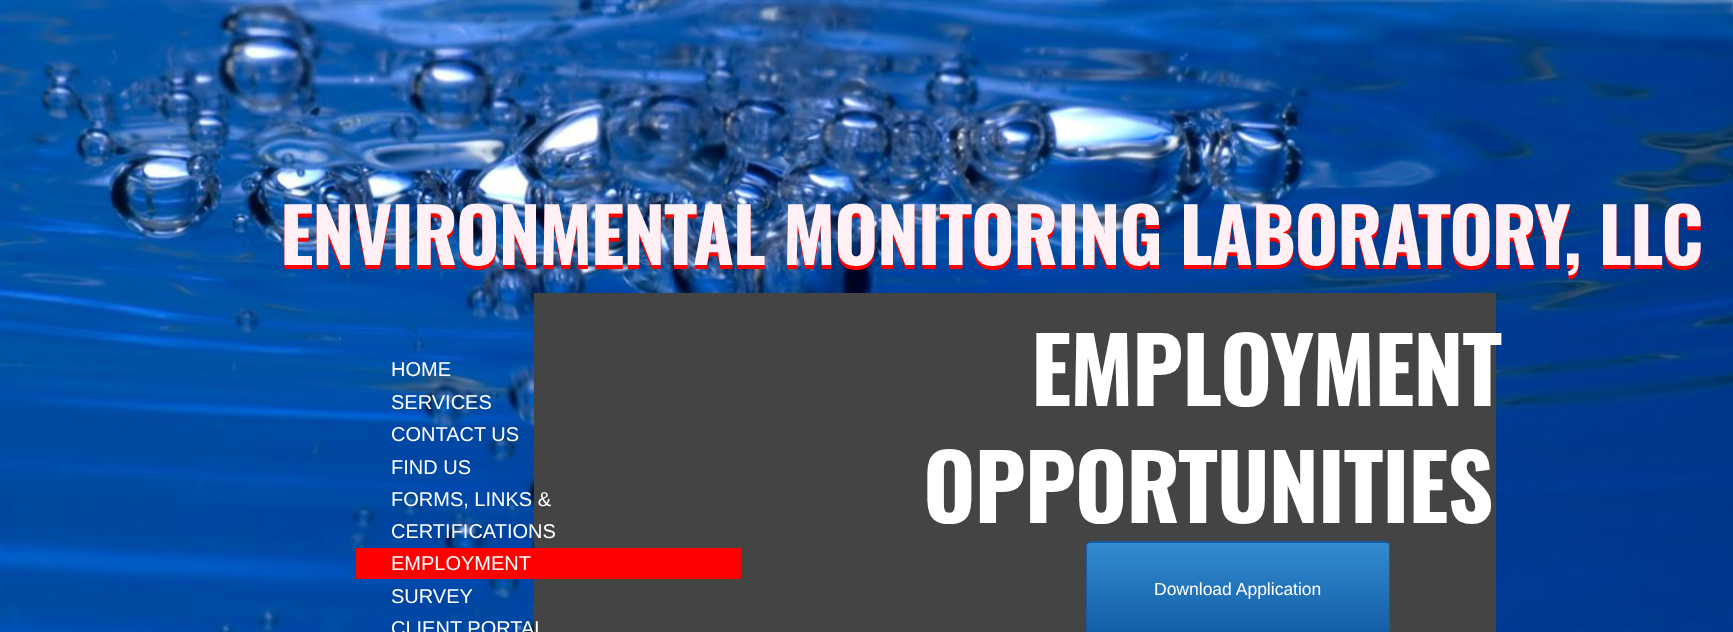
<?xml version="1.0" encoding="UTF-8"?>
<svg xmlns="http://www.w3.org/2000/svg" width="1733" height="632">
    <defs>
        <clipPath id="clip1"><rect x="1086" y="541" width="304" height="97" rx="6"/></clipPath>
        <linearGradient id="g1" gradientUnits="userSpaceOnUse" x1="1238" y1="449" x2="1238" y2="543"><stop offset="0" stop-color="#348BCF"/><stop offset="1" stop-color="#125CA6"/></linearGradient>
        <linearGradient id="g2" gradientUnits="userSpaceOnUse" x1="1238" y1="543" x2="1238" y2="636"><stop offset="0" stop-color="#348BCF"/><stop offset="1" stop-color="#125CA6"/></linearGradient>
    </defs>
    <rect width="100%" height="100%" fill="#FFFFFF"/>
    <image x="0" y="0" width="1733" height="632" href="img_01.png"/>
    <text x="280" y="269" font-family="Oswald" font-size="75" font-weight="700" letter-spacing="-1.25" fill="#FF0000">ENVIRONMENTAL MONITORING LABORATORY, LLC</text>
    <text x="280" y="265" font-family="Oswald" font-size="75" font-weight="700" letter-spacing="-1.25" fill="#FFF0F5">ENVIRONMENTAL MONITORING LABORATORY, LLC</text>
    <rect x="534" y="293" width="962" height="339" fill="#444444"/>
    <text font-family="Arimo" font-size="20" fill="#FFFFFF">
        <tspan x="391" y="376">HOME</tspan>
        <tspan x="391" y="409">SERVICES</tspan>
        <tspan x="391" y="441">CONTACT US</tspan>
        <tspan x="391" y="474">FIND US</tspan>
        <tspan x="391" y="506">FORMS, LINKS &amp;</tspan>
        <tspan x="391" y="538">CERTIFICATIONS</tspan>
    </text>
    <rect x="356" y="548" width="385" height="31" fill="#FF0000"/>
    <text font-family="Arimo" font-size="20" fill="#FFFFFF">
        <tspan x="391" y="570">EMPLOYMENT</tspan>
        <tspan x="391" y="603">SURVEY</tspan>
        <tspan x="391" y="635">CLIENT PORTAL</tspan>
    </text>
    <text x="1031" y="406" font-family="Oswald" font-size="90" font-weight="700" letter-spacing="-1.25" fill="#FFFFFF">EMPLOYMENT</text>
    <text x="923" y="523" font-family="Oswald" font-size="90" font-weight="700" letter-spacing="-1.25" fill="#FFFFFF">OPPORTUNITIES</text>
    <g clip-path="url(#clip1)">
        <rect x="1086" y="541" width="304" height="2" fill="url(#g1)"/>
        <rect x="1086" y="543" width="304" height="89" fill="url(#g2)"/>
    </g>
    <rect x="1086.5" y="541.5" width="303" height="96" rx="5.5" fill="none" stroke="#125CA6"/>
    <text x="1154" y="595" font-family="Liberation Sans" font-size="17.5" fill="#FFFFFF">Download Application</text>
</svg>
